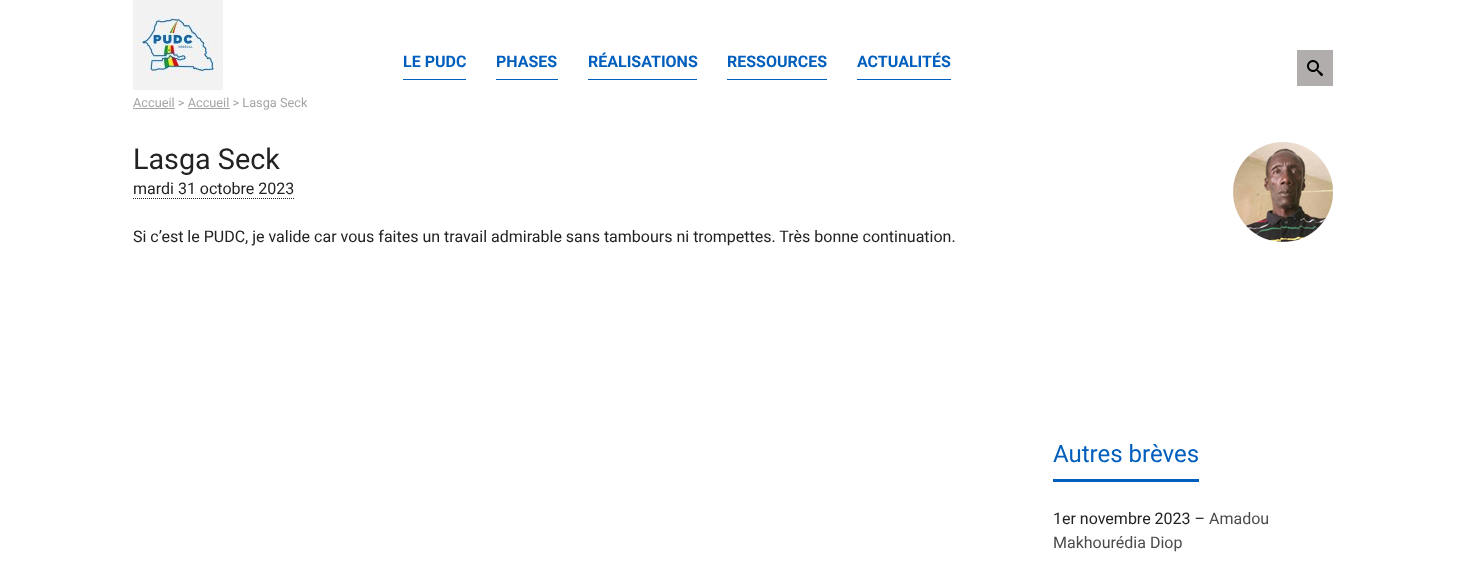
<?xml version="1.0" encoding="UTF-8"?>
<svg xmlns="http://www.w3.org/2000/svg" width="1466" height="565">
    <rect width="100%" height="100%" fill="#FFFFFF"/>
    <image x="133" y="0" width="90" height="90" href="img_01.png"/>
    <rect x="403" y="79" width="63" height="1" fill="#005EBD"/>
    <text x="403" y="67" font-family="Roboto" font-size="16" font-weight="700" fill="#005EBD">LE PUDC</text>
    <rect x="496" y="79" width="62" height="1" fill="#005EBD"/>
    <text x="496" y="67" font-family="Roboto" font-size="16" font-weight="700" fill="#005EBD">PHASES</text>
    <rect x="588" y="79" width="109" height="1" fill="#005EBD"/>
    <text x="588" y="67" font-family="Roboto" font-size="16" font-weight="700" fill="#005EBD">RÉALISATIONS</text>
    <rect x="727" y="79" width="100" height="1" fill="#005EBD"/>
    <text x="727" y="67" font-family="Roboto" font-size="16" font-weight="700" fill="#005EBD">RESSOURCES</text>
    <rect x="857" y="79" width="94" height="1" fill="#005EBD"/>
    <text x="857" y="67" font-family="Roboto" font-size="16" font-weight="700" fill="#005EBD">ACTUALITÉS</text>
    <rect x="1297" y="50" width="36" height="36" fill="#B1ADAD"/>
    <image x="1307" y="60" width="16" height="16" href="img_02.png"/>
    <rect x="133" y="108" width="42" height="1" fill="#A5A5A5"/>
    <text x="133" y="107" font-family="Roboto" font-size="12.75" fill="#A5A5A5">Accueil &gt; Accueil &gt; Lasga Seck</text>
    <rect x="188" y="108" width="42" height="1" fill="#A5A5A5"/>
    <text x="133" y="169" font-family="Roboto" font-size="28.75" fill="#222222">Lasga Seck</text>
    <image x="1233" y="142" width="100" height="100" href="img_03.png"/>
    <text x="133" y="194" font-family="Roboto" font-size="16" fill="#222222">mardi 31 octobre 2023</text>
    <path d="M 133 198.5 H 294" fill="none" stroke="#222222" stroke-dasharray="1 1"/>
    <text x="133" y="242" font-family="Roboto" font-size="16" fill="#222222">Si c’est le PUDC, je valide car vous faites un travail admirable sans tambours ni trompettes. Très bonne continuation.</text>
    <rect x="1053" y="479" width="146" height="3" fill="#005FBE"/>
    <text x="1053" y="462" font-family="Roboto" font-size="24" fill="#005EBD">Autres brèves</text>
    <text x="1053" y="524" font-family="Roboto" font-size="16" fill="#222222">1er novembre 2023 –</text>
    <text x="1209" y="524" font-family="Roboto" font-size="16" fill="#4B4B4B">Amadou</text>
    <text x="1053" y="548" font-family="Roboto" font-size="16" fill="#4B4B4B">Makhourédia Diop</text>
</svg>
